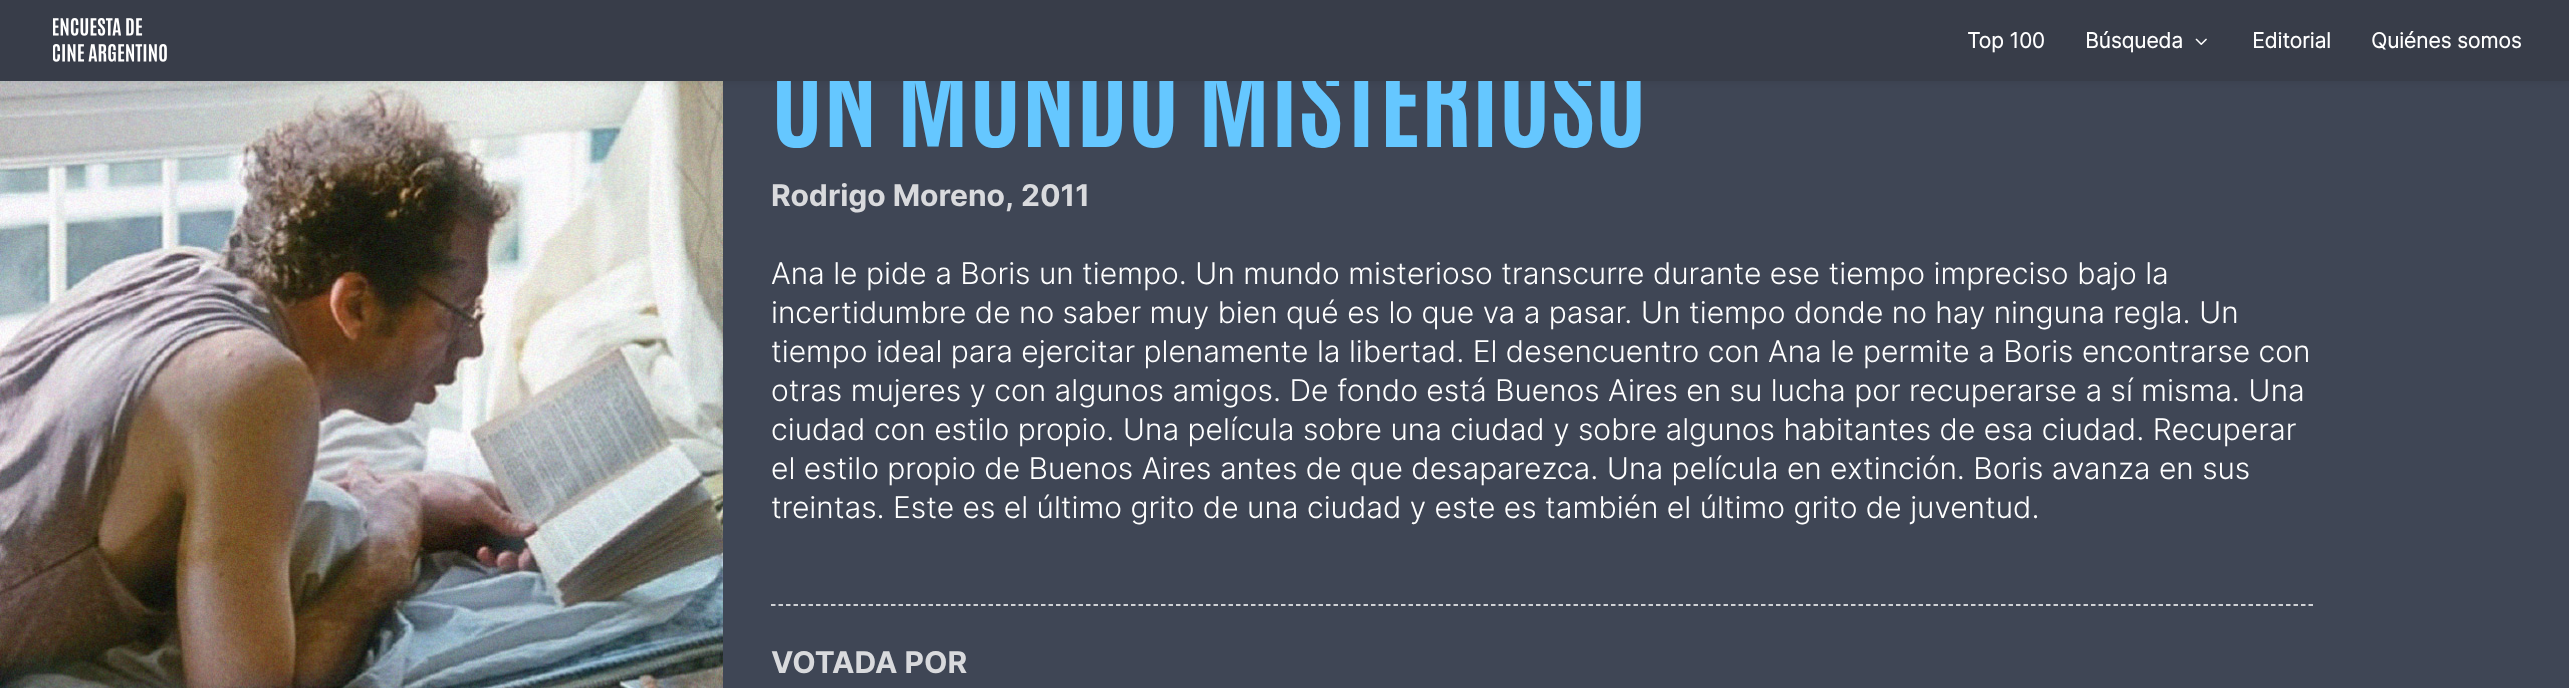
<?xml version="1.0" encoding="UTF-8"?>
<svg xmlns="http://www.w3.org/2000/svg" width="2569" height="688">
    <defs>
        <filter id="blur1" x="-50%" y="-200%" width="200%" height="500%"><feGaussianBlur stdDeviation="5"/></filter>
    </defs>
    <rect width="100%" height="100%" fill="#3F4655"/>
    <image x="0" y="81" width="723" height="607" href="img_03.png"/>
    <rect x="0" y="0" width="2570" height="81" fill="#000000" fill-opacity="0.1" filter="url(#blur1)"/>
    <text x="771" y="147" font-family="Antonio" font-size="105" font-weight="700" fill="#65C7FF">UN MUNDO MISTERIOSO</text>
    <rect x="0" y="0" width="2569" height="81" fill="#383D49"/>
    <image x="53" y="18" width="114" height="44" href="img_01.png"/>
    <text x="1967" y="48" font-family="'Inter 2'" font-size="21" font-weight="700" fill="#FFFFFF">Top 100</text>
    <text x="2085" y="48" font-family="'Inter 2'" font-size="21" font-weight="700" fill="#FFFFFF">Búsqueda</text>
    <image x="2195" y="38" width="12" height="7" href="img_02.png"/>
    <text x="2252" y="48" font-family="'Inter 2'" font-size="21" font-weight="700" fill="#FFFFFF">Editorial</text>
    <text x="2371" y="48" font-family="'Inter 2'" font-size="21" font-weight="700" fill="#FFFFFF">Quiénes somos</text>
    <text x="771" y="206" font-family="Inter" font-size="30" font-weight="700" fill="#D9DADD">Rodrigo Moreno,</text>
    <text x="1021" y="206" font-family="Inter" font-size="30" font-weight="700" fill="#D9DADD">2011</text>
    <text font-family="Inter" font-size="30" font-weight="300" fill="#FFFFFF">
        <tspan x="771" y="284">Ana le pide a Boris un tiempo. Un mundo misterioso transcurre durante ese tiempo impreciso bajo la</tspan>
        <tspan x="771" y="323">incertidumbre de no saber muy bien qué es lo que va a pasar. Un tiempo donde no hay ninguna regla. Un</tspan>
        <tspan x="771" y="362">tiempo ideal para ejercitar plenamente la libertad. El desencuentro con Ana le permite a Boris encontrarse con</tspan>
        <tspan x="771" y="401">otras mujeres y con algunos amigos. De fondo está Buenos Aires en su lucha por recuperarse a sí misma. Una</tspan>
        <tspan x="771" y="440">ciudad con estilo propio. Una película sobre una ciudad y sobre algunos habitantes de esa ciudad. Recuperar</tspan>
        <tspan x="771" y="479">el estilo propio de Buenos Aires antes de que desaparezca. Una película en extinción. Boris avanza en sus</tspan>
        <tspan x="771" y="518">treintas. Este es el último grito de una ciudad y este es también el último grito de juventud.</tspan>
    </text>
    <path d="M 771 605 H 2313" fill="none" stroke="#FFFFFF" stroke-width="1.5" stroke-dasharray="4.5 3"/>
    <text x="771" y="673" font-family="Inter" font-size="30" font-weight="700" fill="#D9DADD">VOTADA POR</text>
</svg>
